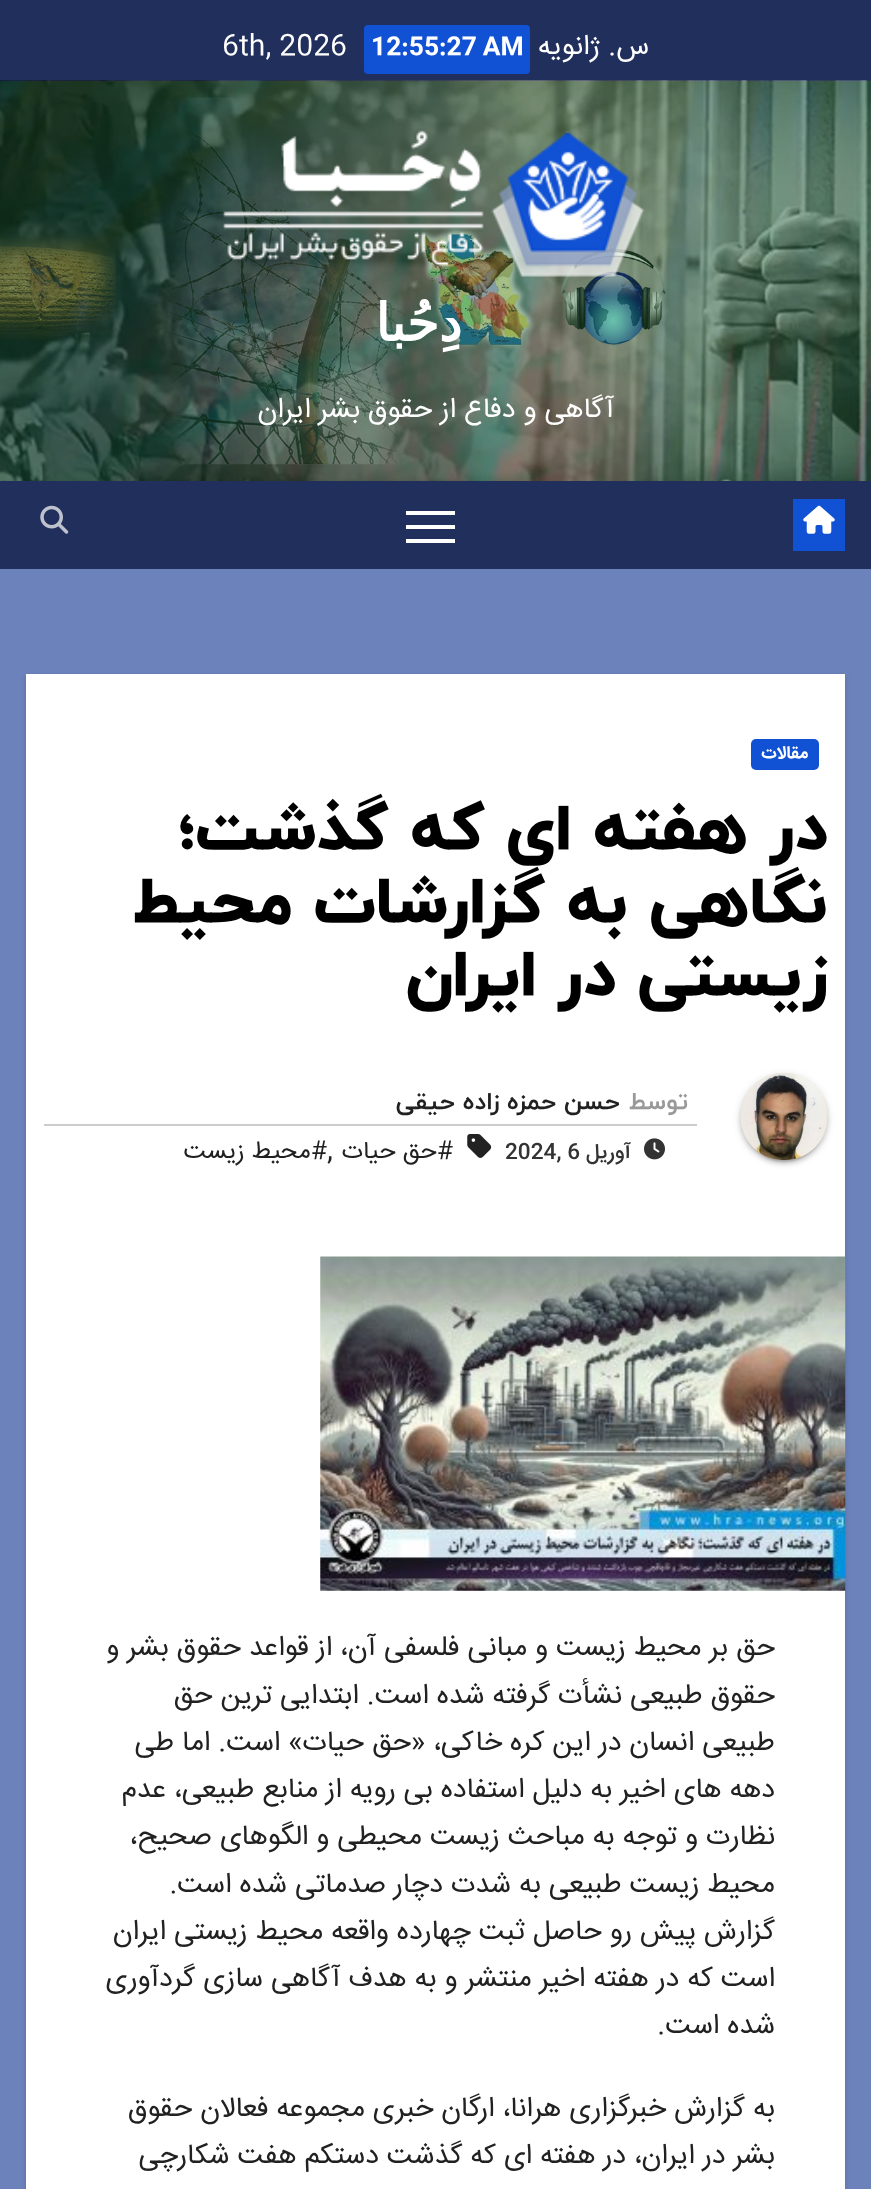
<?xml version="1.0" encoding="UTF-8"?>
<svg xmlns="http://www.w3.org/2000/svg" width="871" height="2189">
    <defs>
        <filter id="blur1" x="-50%" y="-200%" width="200%" height="500%"><feGaussianBlur stdDeviation="2.5"/></filter>
        <filter id="blur2" x="-50%" y="-200%" width="200%" height="500%"><feGaussianBlur stdDeviation="4.5"/></filter>
        <filter id="blur3" x="-50%" y="-200%" width="200%" height="500%"><feGaussianBlur stdDeviation="1"/></filter>
        <filter id="blur4" x="-50%" y="-200%" width="200%" height="500%"><feGaussianBlur stdDeviation="2"/></filter>
    </defs>
    <rect width="100%" height="100%" fill="#6B82BA"/>
    <rect x="0" y="0" width="871" height="81" fill="#202F5B"/>
    <text x="649" y="54" font-family="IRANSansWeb" font-size="28" direction="rtl" fill="#FFFFFF">س. ژانویه</text>
    <rect x="364" y="25" width="166" height="49" rx="4" fill="#1151D3"/>
    <text x="371" y="54" font-family="IRANSansWeb" font-size="24.5" font-weight="700" fill="#FFFFFF">12:55:27 AM</text>
    <text x="222" y="54" font-family="IRANSansWeb" font-size="28" fill="#FFFFFF">6th, 2026</text>
    <image x="0" y="80" width="871" height="401" href="img_01.png"/>
    <image x="222" y="130" width="423" height="147" href="img_02.png"/>
    <text x="462" y="341" font-family="DejaVu Sans" font-size="52" font-weight="700" letter-spacing="-3" direction="rtl" fill="#FFFFFF">دِحُبا</text>
    <text x="614" y="417" font-family="IRANSansWeb" font-size="28" direction="rtl" fill="#FFFFFF">آگاهی و دفاع از حقوق بشر ایران</text>
    <rect x="0" y="481" width="871" height="88" fill="#202F5B"/>
    <rect x="793" y="499" width="52" height="52" fill="#1151D3"/>
    <image x="803" y="505" width="32" height="29" href="img_03.png"/>
    <rect x="406" y="511" width="49" height="4" fill="#FFFFFF"/>
    <rect x="406" y="525" width="49" height="4" fill="#FFFFFF"/>
    <rect x="406" y="539" width="49" height="4" fill="#FFFFFF"/>
    <image x="40" y="505" width="29" height="29" href="img_04.png"/>
    <rect x="26" y="676" width="819" height="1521" fill="#000000" fill-opacity="0.15" filter="url(#blur1)"/>
    <rect x="26" y="674" width="819" height="1515" fill="#FFFFFF"/>
    <rect x="751" y="739" width="68" height="31" rx="5" fill="#1151D3"/>
    <text x="808" y="758" font-family="IRANSansWeb" font-size="17.5" font-weight="700" direction="rtl" fill="#FFFFFF">مقالات</text>
    <text font-family="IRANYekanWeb" font-size="66.5" font-weight="800" direction="rtl" fill="#000000">
        <tspan x="828" y="849">در هفته ای که گذشت؛</tspan>
        <tspan x="828" y="922">نگاهی به گزارشات محیط</tspan>
        <tspan x="828" y="995">زیستی در ایران</tspan>
    </text>
    <rect x="740" y="1075" width="88" height="87" rx="43.5" fill="#000000" fill-opacity="0.12" filter="url(#blur2)"/>
    <rect x="744" y="1082" width="80" height="80" rx="40" fill="#000000" fill-opacity="0.2" filter="url(#blur3)"/>
    <rect x="740" y="1076" width="88" height="88" rx="44" fill="#000000" fill-opacity="0.14" filter="url(#blur4)"/>
    <image x="740" y="1073" width="88" height="88" href="img_05.png"/>
    <rect x="44" y="1124" width="653" height="2" fill="#CCCCCC"/>
    <text x="688" y="1109" font-family="IRANYekanWeb" font-size="24.5" font-weight="700" direction="rtl" fill="#999999">توسط</text>
    <text x="620" y="1109" font-family="IRANYekanWeb" font-size="24.5" font-weight="700" direction="rtl" fill="#212121">حسن حمزه زاده حیقی</text>
    <image x="644" y="1138" width="21" height="22" href="img_06.png"/>
    <text x="631" y="1158" font-family="IRANSansWeb" font-size="21" font-weight="500" direction="rtl" fill="#333333">آوریل</text>
    <text x="505" y="1158" font-family="IRANSansWeb" font-size="21" font-weight="500" fill="#333333">2024, 6</text>
    <image x="467" y="1134" width="25" height="24" href="img_07.png"/>
    <text x="453" y="1158" font-family="IRANSansWeb" font-size="24.5" direction="rtl" fill="#212121">#حق حیات</text>
    <text x="327" y="1158" font-family="IRANSansWeb" font-size="28" fill="#212121">,</text>
    <text x="327" y="1158" font-family="IRANSansWeb" font-size="24.5" direction="rtl" fill="#212121">#محیط زیست</text>
    <image x="320" y="1256" width="526" height="335" href="img_08.png"/>
    <text font-family="IRANSansWeb" font-size="28" direction="rtl" fill="#212121">
        <tspan x="775" y="1655">حق بر محیط زیست و مبانی فلسفی آن، از قواعد حقوق بشر و</tspan>
        <tspan x="775" y="1703">حقوق طبیعی نشأت گرفته شده است. ابتدایی ترین حق</tspan>
        <tspan x="775" y="1750">طبیعی انسان در این کره خاکی، «حق حیات» است. اما طی</tspan>
        <tspan x="775" y="1797">دهه های اخیر به دلیل استفاده بی رویه از منابع طبیعی، عدم</tspan>
        <tspan x="775" y="1844">نظارت و توجه به مباحث زیست محیطی و الگوهای</tspan>
    </text>
    <text x="212" y="1844" font-family="IRANSansWeb" font-size="28" direction="rtl" fill="#212121">صحیح،</text>
    <text font-family="IRANSansWeb" font-size="28" direction="rtl" fill="#212121">
        <tspan x="775" y="1892">محیط زیست طبیعی به شدت دچار صدماتی شده است.</tspan>
        <tspan x="775" y="1939">گزارش پیش رو حاصل ثبت چهارده واقعه محیط زیستی ایران</tspan>
        <tspan x="775" y="1986">است که در هفته اخیر منتشر و به هدف آگاهی سازی گردآوری</tspan>
        <tspan x="775" y="2033">شده است.</tspan>
    </text>
    <text font-family="IRANSansWeb" font-size="28" direction="rtl" fill="#212121">
        <tspan x="775" y="2116">به گزارش خبرگزاری هرانا، ارگان خبری مجموعه فعالان حقوق</tspan>
        <tspan x="775" y="2163">بشر در ایران، در هفته‌ ای که گذشت دستکم هفت شکارچی</tspan>
    </text>
</svg>
